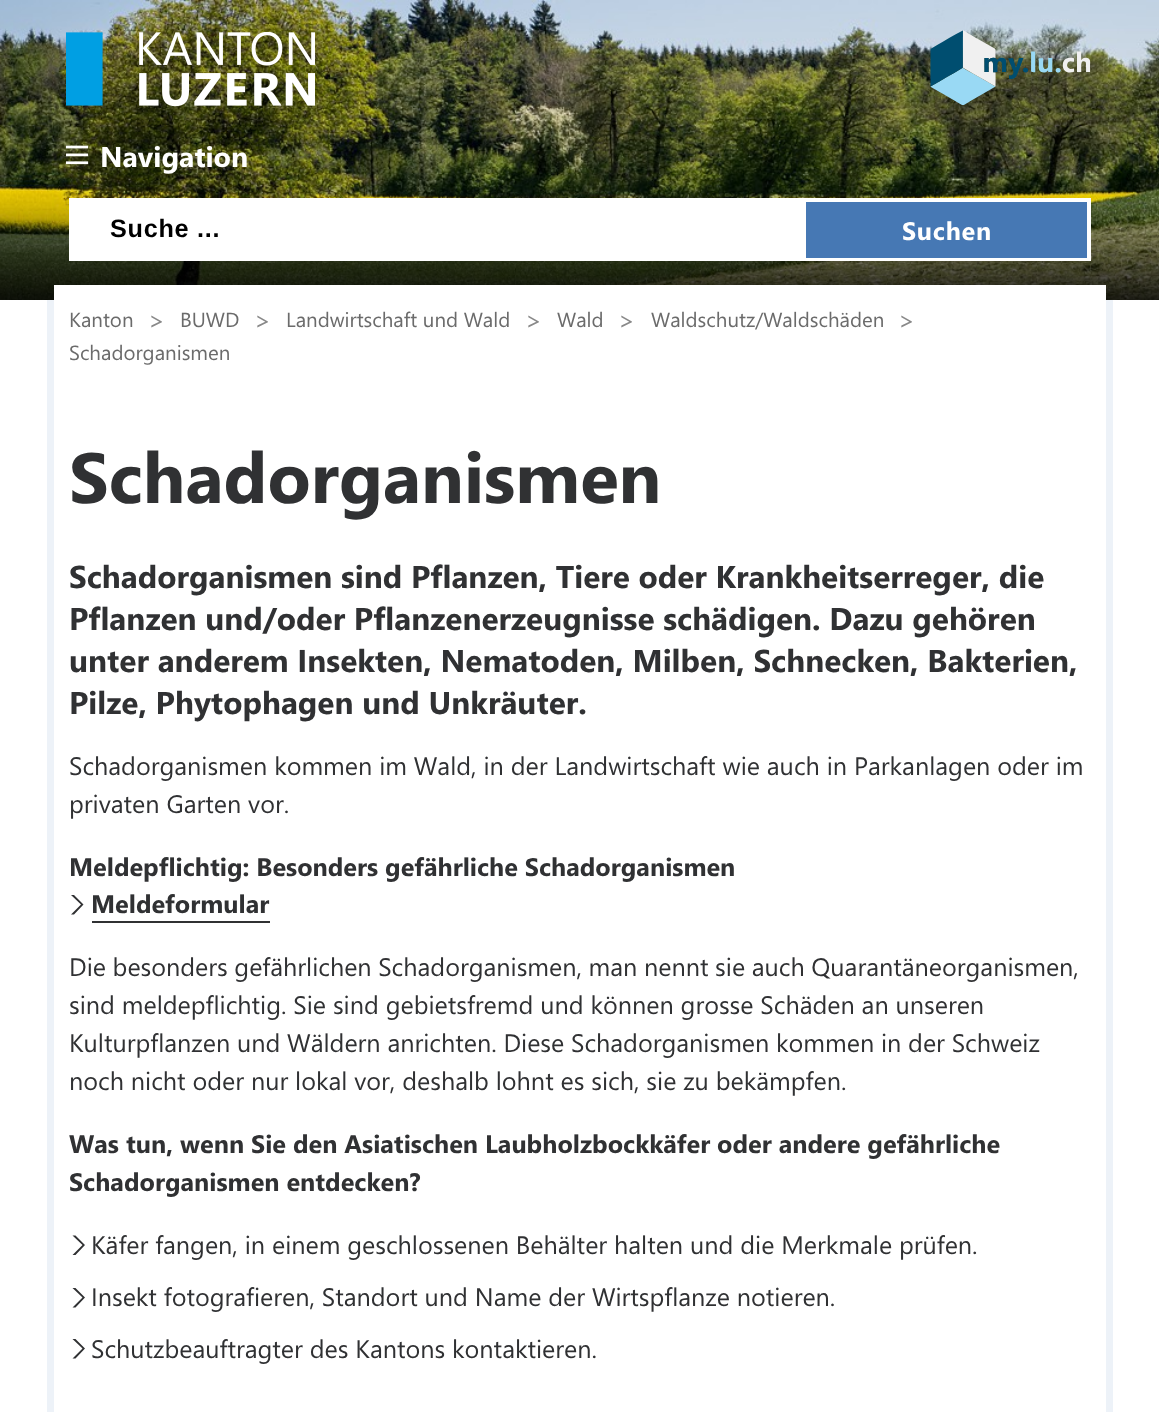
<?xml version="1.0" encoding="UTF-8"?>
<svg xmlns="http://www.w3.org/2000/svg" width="1159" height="1412">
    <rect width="100%" height="100%" fill="#FFFFFF"/>
    <image x="0" y="0" width="1159" height="300" href="img_01.png"/>
    <image x="66" y="32" width="249" height="75" href="img_02.png"/>
    <image x="930" y="30" width="161" height="75" href="img_03.png"/>
    <image x="66" y="145" width="23" height="20" href="img_04.png"/>
    <text x="100" y="167" font-family="Segoe UI" font-size="28.5" font-weight="700" fill="#FFFFFF">Navigation</text>
    <rect x="69" y="198" width="1022" height="63" fill="#FFFFFF"/>
    <text x="110" y="237" font-family="Liberation Sans" font-size="25.2" font-weight="700" letter-spacing="0.75" fill="#000000">Suche ...</text>
    <rect x="806" y="202" width="281" height="56" fill="#4678B4"/>
    <text x="902" y="240" font-family="Segoe UI" font-size="25.2" font-weight="700" letter-spacing="0.75" fill="#FFFFFF">Suchen</text>
    <rect x="54" y="285" width="1052" height="15" fill="#FFFFFF"/>
    <rect x="47" y="300" width="7" height="1112" fill="#EDF2F8"/>
    <text x="69" y="327" font-family="Segoe UI" font-size="20.5" fill="#6B6B6B">Kanton</text>
    <text x="148" y="329" font-family="Segoe UI" font-size="25.2" fill="#898989">&gt;</text>
    <text x="180" y="327" font-family="Segoe UI" font-size="20.5" fill="#6B6B6B">BUWD</text>
    <text x="254" y="329" font-family="Segoe UI" font-size="25.2" fill="#898989">&gt;</text>
    <text x="286" y="327" font-family="Segoe UI" font-size="20.5" fill="#6B6B6B">Landwirtschaft und Wald</text>
    <text x="525" y="329" font-family="Segoe UI" font-size="25.2" fill="#898989">&gt;</text>
    <text x="557" y="327" font-family="Segoe UI" font-size="20.5" fill="#6B6B6B">Wald</text>
    <text x="618" y="329" font-family="Segoe UI" font-size="25.2" fill="#898989">&gt;</text>
    <text x="651" y="327" font-family="Segoe UI" font-size="20.5" fill="#6B6B6B">Waldschutz/Waldschäden</text>
    <text x="898" y="329" font-family="Segoe UI" font-size="25.2" fill="#898989">&gt;</text>
    <text x="69" y="360" font-family="Segoe UI" font-size="20.5" fill="#6B6B6B">Schadorganismen</text>
    <rect x="1106" y="300" width="7" height="1112" fill="#EDF2F8"/>
    <text x="69" y="503" font-family="Segoe UI" font-size="70.9" font-weight="700" fill="#303133">Schadorganismen</text>
    <text font-family="Segoe UI" font-size="31.5" font-weight="700" fill="#303133">
        <tspan x="69" y="588">Schadorganismen sind Pflanzen, Tiere oder Krankheitserreger, die</tspan>
        <tspan x="69" y="630">Pflanzen und/oder Pflanzenerzeugnisse schädigen. Dazu gehören</tspan>
        <tspan x="69" y="672">unter anderem Insekten, Nematoden, Milben, Schnecken, Bakterien,</tspan>
        <tspan x="69" y="714">Pilze, Phytophagen und Unkräuter.</tspan>
    </text>
    <text font-family="Segoe UI" font-size="25.2" fill="#303133">
        <tspan x="69" y="775">Schadorganismen kommen im Wald, in der Landwirtschaft wie auch in Parkanlagen oder im</tspan>
        <tspan x="69" y="813">privaten Garten vor.</tspan>
    </text>
    <text x="69" y="876" font-family="Segoe UI" font-size="25.2" font-weight="700" fill="#303133">Meldepflichtig: Besonders gefährliche Schadorganismen</text>
    <path d="M 81 904.5 L 71 914.5 H 74 L 83.5 904.5 L 74 895 H 71 Z" fill="#303133"/>
    <text x="91" y="913" font-family="Segoe UI" font-size="25.2" font-weight="700" fill="#303133">Meldeformular</text>
    <rect x="92" y="921" width="178" height="2" fill="#303133"/>
    <text font-family="Segoe UI" font-size="25.2" fill="#303133">
        <tspan x="69" y="976" word-spacing="-0.25">Die besonders gefährlichen Schadorganismen, man nennt sie auch Quarantäneorganismen,</tspan>
        <tspan x="69" y="1014">sind meldepflichtig. Sie sind gebietsfremd und können grosse Schäden an unseren</tspan>
        <tspan x="69" y="1052" word-spacing="-0.1">Kulturpflanzen und Wäldern anrichten. Diese Schadorganismen kommen in der Schweiz</tspan>
        <tspan x="69" y="1090">noch nicht oder nur lokal vor, deshalb lohnt es sich, sie zu bekämpfen.</tspan>
    </text>
    <text font-family="Segoe UI" font-size="25.2" font-weight="700" fill="#303133">
        <tspan x="69" y="1153">Was tun, wenn Sie den Asiatischen Laubholzbockkäfer oder andere gefährliche</tspan>
        <tspan x="69" y="1191">Schadorganismen entdecken?</tspan>
    </text>
    <path d="M 82.5 1245 L 72.5 1255 H 75.5 L 85 1245 L 75.5 1235.5 H 72.5 Z" fill="#303133"/>
    <text x="91" y="1254" font-family="Segoe UI" font-size="25.2" fill="#303133">Käfer fangen, in einem geschlossenen Behälter halten und die Merkmale prüfen.</text>
    <path d="M 82.5 1297.5 L 72.5 1307.5 H 75.5 L 85 1297.5 L 75.5 1288 H 72.5 Z" fill="#303133"/>
    <text x="91" y="1306" font-family="Segoe UI" font-size="25.2" fill="#303133">Insekt fotografieren, Standort und Name der Wirtspflanze notieren.</text>
    <path d="M 82.5 1348.5 L 72.5 1358.5 H 75.5 L 85 1348.5 L 75.5 1339 H 72.5 Z" fill="#303133"/>
    <text x="91" y="1358" font-family="Segoe UI" font-size="25.2" fill="#303133">Schutzbeauftragter des Kantons kontaktieren.</text>
</svg>
